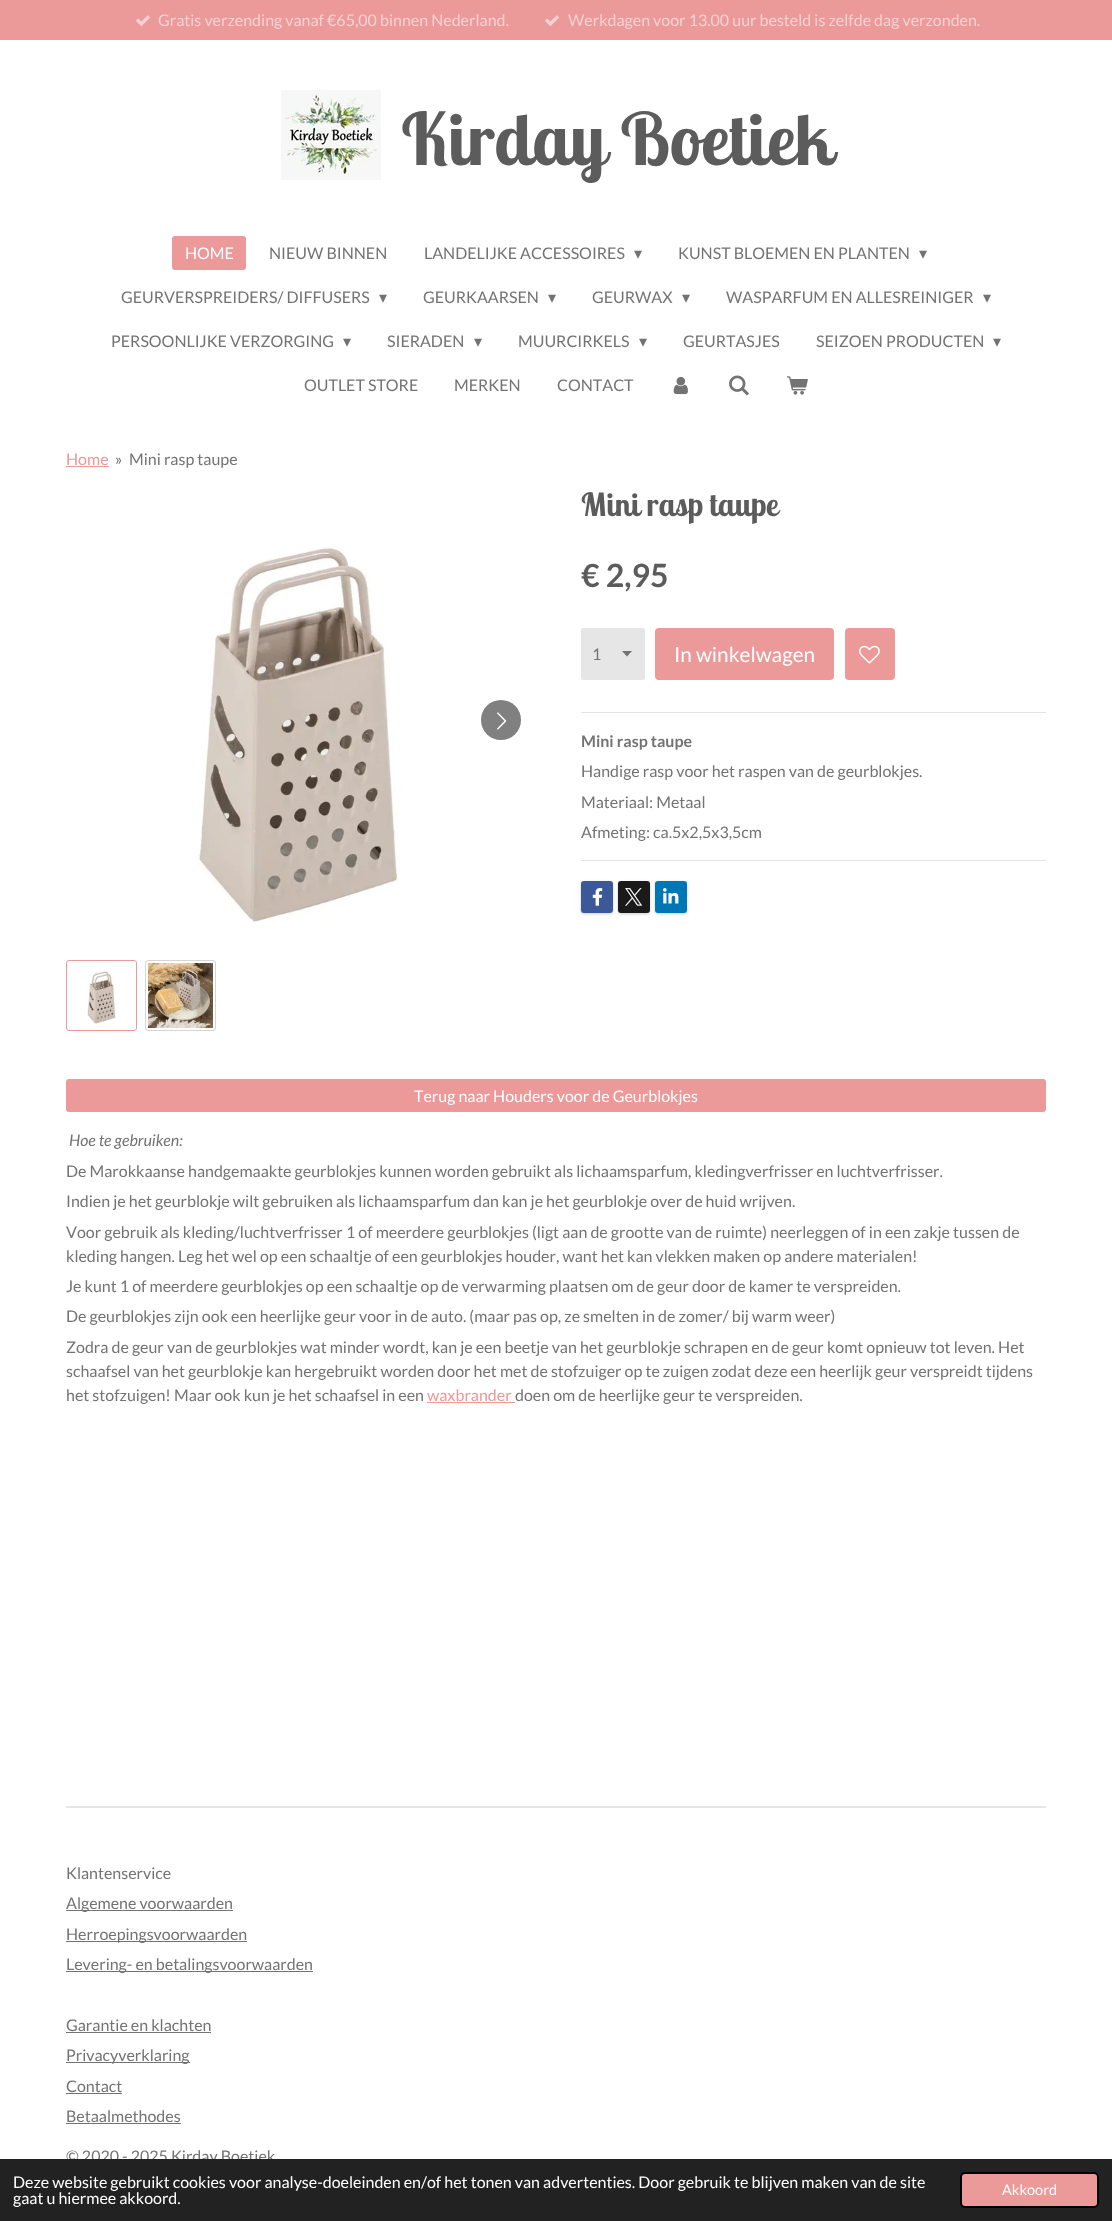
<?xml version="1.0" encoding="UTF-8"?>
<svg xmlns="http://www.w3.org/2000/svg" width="1112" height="2221">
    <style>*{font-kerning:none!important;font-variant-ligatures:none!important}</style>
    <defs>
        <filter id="blur1" x="-50%" y="-200%" width="200%" height="500%"><feGaussianBlur stdDeviation="1.5"/></filter>
    </defs>
    <rect width="100%" height="100%" fill="#FFFFFF"/>
    <rect x="0" y="0" width="1112" height="40" fill="#EB9999"/>
    <image x="136" y="15" width="14" height="11" href="img_01.png"/>
    <text x="158" y="26" font-family="Lato" font-size="16" fill="#F6D1D1">Gratis verzending vanaf €65,00 binnen Nederland.</text>
    <image x="545" y="15" width="14" height="11" href="img_01.png"/>
    <text x="568" y="26" font-family="Lato" font-size="16" fill="#F6D1D1">Werkdagen voor 13.00 uur besteld is zelfde dag verzonden.</text>
    <image x="281" y="90" width="100" height="90" href="img_02.png"/>
    <text x="401" y="165" font-family="Lobster Two" font-size="72" font-weight="700" fill="#5C5C5C">Kirday Boetiek</text>
    <rect x="172" y="236" width="74" height="34" rx="3" fill="#EB9999"/>
    <text x="185" y="259" font-family="Lato" font-size="16" fill="#FFFFFF">HOME</text>
    <text x="269" y="259" font-family="Lato" font-size="16" fill="#737373">NIEUW BINNEN</text>
    <text x="424" y="259" font-family="Lato" font-size="16" fill="#737373">LANDELIJKE ACCESSOIRES</text>
    <text x="634" y="259" font-family="DejaVu Sans" font-size="16" fill="#737373">▾</text>
    <text x="678" y="259" font-family="Lato" font-size="16" fill="#737373">KUNST BLOEMEN EN PLANTEN</text>
    <text x="919" y="259" font-family="DejaVu Sans" font-size="16" fill="#737373">▾</text>
    <text x="121" y="303" font-family="Lato" font-size="16" fill="#737373">GEURVERSPREIDERS/ DIFFUSERS</text>
    <text x="379" y="303" font-family="DejaVu Sans" font-size="16" fill="#737373">▾</text>
    <text x="423" y="303" font-family="Lato" font-size="16" fill="#737373">GEURKAARSEN</text>
    <text x="548" y="303" font-family="DejaVu Sans" font-size="16" fill="#737373">▾</text>
    <text x="592" y="303" font-family="Lato" font-size="16" fill="#737373">GEURWAX</text>
    <text x="682" y="303" font-family="DejaVu Sans" font-size="16" fill="#737373">▾</text>
    <text x="726" y="303" font-family="Lato" font-size="16" fill="#737373">WASPARFUM EN ALLESREINIGER</text>
    <text x="983" y="303" font-family="DejaVu Sans" font-size="16" fill="#737373">▾</text>
    <text x="111" y="347" font-family="Lato" font-size="16" fill="#737373">PERSOONLIJKE VERZORGING</text>
    <text x="343" y="347" font-family="DejaVu Sans" font-size="16" fill="#737373">▾</text>
    <text x="387" y="347" font-family="Lato" font-size="16" fill="#737373">SIERADEN</text>
    <text x="474" y="347" font-family="DejaVu Sans" font-size="16" fill="#737373">▾</text>
    <text x="518" y="347" font-family="Lato" font-size="16" fill="#737373">MUURCIRKELS</text>
    <text x="639" y="347" font-family="DejaVu Sans" font-size="16" fill="#737373">▾</text>
    <text x="683" y="347" font-family="Lato" font-size="16" fill="#737373">GEURTASJES</text>
    <text x="816" y="347" font-family="Lato" font-size="16" fill="#737373">SEIZOEN PRODUCTEN</text>
    <text x="993" y="347" font-family="DejaVu Sans" font-size="16" fill="#737373">▾</text>
    <text x="304" y="391" font-family="Lato" font-size="16" fill="#737373">OUTLET STORE</text>
    <text x="454" y="391" font-family="Lato" font-size="16" fill="#737373">MERKEN</text>
    <text x="557" y="391" font-family="Lato" font-size="16" fill="#737373">CONTACT</text>
    <image x="673" y="376" width="15" height="19" href="img_03.png"/>
    <image x="729" y="375" width="20" height="21" href="img_04.png"/>
    <image x="787" y="376" width="21" height="19" href="img_05.png"/>
    <text x="66" y="465" font-family="Lato" font-size="16" fill="#EB9999">Home</text>
    <rect x="66" y="466" width="43" height="1" fill="#EB9999"/>
    <text x="115" y="465" font-family="Lato" font-size="16" fill="#737373">»</text>
    <text x="129" y="465" font-family="Lato" font-size="16" fill="#737373">Mini rasp taupe</text>
    <text x="581" y="516" font-family="Lobster Two" font-size="32" font-weight="700" fill="#5C5C5C">Mini rasp taupe</text>
    <image x="198" y="546" width="200" height="376" href="img_06.png"/>
    <circle cx="501" cy="720" r="20" fill="#808080"/>
    <image x="497" y="712" width="10" height="18" href="img_07.png"/>
    <rect x="66.5" y="960.5" width="70" height="70" rx="2.5" fill="none" stroke="#EB9999"/>
    <image x="87" y="971" width="29" height="54" href="img_08.png"/>
    <rect x="145.5" y="960.5" width="70" height="70" rx="2.5" fill="none" stroke="#D5D5D5"/>
    <image x="148" y="963" width="65" height="65" href="img_09.png"/>
    <text x="581" y="587" font-family="Lato" font-size="32" font-weight="700" fill="#5C5C5C">€ 2,95</text>
    <rect x="581" y="628" width="64" height="52" rx="2" fill="#E6E6E6"/>
    <path d="M 627 656.5 L 622 651 H 632 Z" fill="#737373"/>
    <text x="592" y="660" font-family="Lato" font-size="16" fill="#737373">1</text>
    <rect x="655" y="628" width="179" height="52" rx="4" fill="#EB9999"/>
    <text x="674" y="662" font-family="Lato" font-size="20.75" fill="#FFFFFF">In winkelwagen</text>
    <rect x="845" y="628" width="50" height="52" rx="4" fill="#EB9999"/>
    <image x="859" y="645" width="21" height="19" href="img_10.png"/>
    <rect x="581" y="712" width="465" height="1" fill="#E3E3E3"/>
    <text x="581" y="747" font-family="Lato" font-size="16" font-weight="700" fill="#737373">Mini rasp taupe</text>
    <text font-family="Lato" font-size="16" fill="#737373">
        <tspan x="581" y="777">Handige rasp voor het raspen van de geurblokjes.</tspan>
        <tspan x="581" y="808">Materiaal: Metaal</tspan>
        <tspan x="581" y="838">Afmeting: ca.5x2,5x3,5cm</tspan>
    </text>
    <rect x="581" y="860" width="465" height="1" fill="#E3E3E3"/>
    <rect x="581" y="882" width="32" height="32" rx="3" fill="#000000" fill-opacity="0.2" filter="url(#blur1)"/>
    <rect x="581" y="881" width="32" height="32" rx="3" fill="#3B5998"/>
    <image x="592" y="888" width="11" height="18" href="img_11.png"/>
    <rect x="618" y="882" width="32" height="32" rx="3" fill="#000000" fill-opacity="0.2" filter="url(#blur1)"/>
    <rect x="618" y="881" width="32" height="32" rx="3" fill="#1A1A1A"/>
    <image x="625" y="888" width="18" height="18" href="img_12.png"/>
    <rect x="655" y="882" width="32" height="32" rx="3" fill="#000000" fill-opacity="0.2" filter="url(#blur1)"/>
    <rect x="655" y="881" width="32" height="32" rx="3" fill="#0077B5"/>
    <image x="663" y="888" width="16" height="16" href="img_13.png"/>
    <rect x="66" y="1079" width="980" height="33" rx="3" fill="#EB9999"/>
    <text x="414" y="1102" font-family="Lato" font-size="16" fill="#FFFFFF">Terug naar Houders voor de Geurblokjes</text>
    <text x="69" y="1146" font-family="Lato" font-size="16" font-style="italic" fill="#737373">Hoe te gebruiken:</text>
    <text font-family="Lato" font-size="16" fill="#737373">
        <tspan x="66" y="1177">De Marokkaanse handgemaakte geurblokjes kunnen worden gebruikt als lichaamsparfum, kledingverfrisser en luchtverfrisser.</tspan>
        <tspan x="66" y="1207">Indien je het geurblokje wilt gebruiken als lichaamsparfum dan kan je het geurblokje over de huid wrijven.</tspan>
        <tspan x="66" y="1238">Voor gebruik als kleding/luchtverfrisser 1 of meerdere geurblokjes (ligt aan de grootte van de ruimte) neerleggen of in een zakje tussen de</tspan>
        <tspan x="66" y="1262">kleding hangen. Leg het wel op een schaaltje of een geurblokjes houder, want het kan vlekken maken op andere materialen!</tspan>
        <tspan x="66" y="1292">Je kunt 1 of meerdere geurblokjes op een schaaltje op de verwarming plaatsen om de geur door de kamer te verspreiden.</tspan>
        <tspan x="66" y="1322">De geurblokjes zijn ook een heerlijke geur voor in de auto. (maar pas op, ze smelten in de zomer/ bij warm weer)</tspan>
        <tspan x="66" y="1353">Zodra de geur van de geurblokjes wat minder wordt, kan je een beetje van het geurblokje schrapen en de geur komt opnieuw tot leven. Het</tspan>
        <tspan x="66" y="1377">schaafsel van het geurblokje kan hergebruikt worden door het met de stofzuiger op te zuigen zodat deze een heerlijk geur verspreidt tijdens</tspan>
        <tspan x="66" y="1401">het stofzuigen! Maar ook kun je het schaafsel in een</tspan>
    </text>
    <text x="427" y="1401" font-family="Lato" font-size="16" fill="#EB9999">waxbrander</text>
    <rect x="427" y="1402" width="88" height="1" fill="#EB9999"/>
    <text x="515" y="1401" font-family="Lato" font-size="16" fill="#737373">doen om de heerlijke geur te verspreiden.</text>
    <rect x="66" y="1806" width="980" height="2" fill="#E6E6E6"/>
    <text x="66" y="1879" font-family="Lato" font-size="16" fill="#737373">Klantenservice</text>
    <rect x="66" y="1910" width="167" height="1" fill="#737373"/>
    <text x="66" y="1909" font-family="Lato" font-size="16" fill="#737373">Algemene voorwaarden</text>
    <rect x="66" y="1941" width="181" height="1" fill="#737373"/>
    <text x="66" y="1940" font-family="Lato" font-size="16" fill="#737373">Herroepingsvoorwaarden</text>
    <rect x="66" y="1971" width="247" height="1" fill="#737373"/>
    <text x="66" y="1970" font-family="Lato" font-size="16" fill="#737373">Levering- en betalingsvoorwaarden</text>
    <text x="66" y="2031" font-family="Lato" font-size="16" fill="#737373">Garantie en klachten</text>
    <rect x="66" y="2032" width="145" height="1" fill="#737373"/>
    <rect x="66" y="2062" width="124" height="1" fill="#737373"/>
    <text font-family="Lato" font-size="16" fill="#737373">
        <tspan x="66" y="2061">Privacyverklaring</tspan>
        <tspan x="66" y="2092">Contact</tspan>
    </text>
    <rect x="66" y="2093" width="56" height="1" fill="#737373"/>
    <text x="66" y="2122" font-family="Lato" font-size="16" fill="#737373">Betaalmethodes</text>
    <rect x="66" y="2123" width="115" height="1" fill="#737373"/>
    <text x="66" y="2162" font-family="Lato" font-size="16" fill="#737373">© 2020 - 2025 Kirday Boetiek</text>
    <rect x="0" y="2159" width="1112" height="62" fill="#222222"/>
    <text font-family="Lato" font-size="16" fill="#FFFFFF">
        <tspan x="13" y="2188">Deze website gebruikt cookies voor analyse-doeleinden en/of het tonen van advertenties. Door gebruik te blijven maken van de site</tspan>
        <tspan x="13" y="2204">gaat u hiermee akkoord.</tspan>
    </text>
    <rect x="961" y="2173" width="137" height="34" rx="4" fill="#EB9999" stroke="#000000" stroke-width="2"/>
    <text x="1002" y="2195" font-family="Lato" font-size="14.5" fill="#FFFFFF">Akkoord</text>
</svg>
